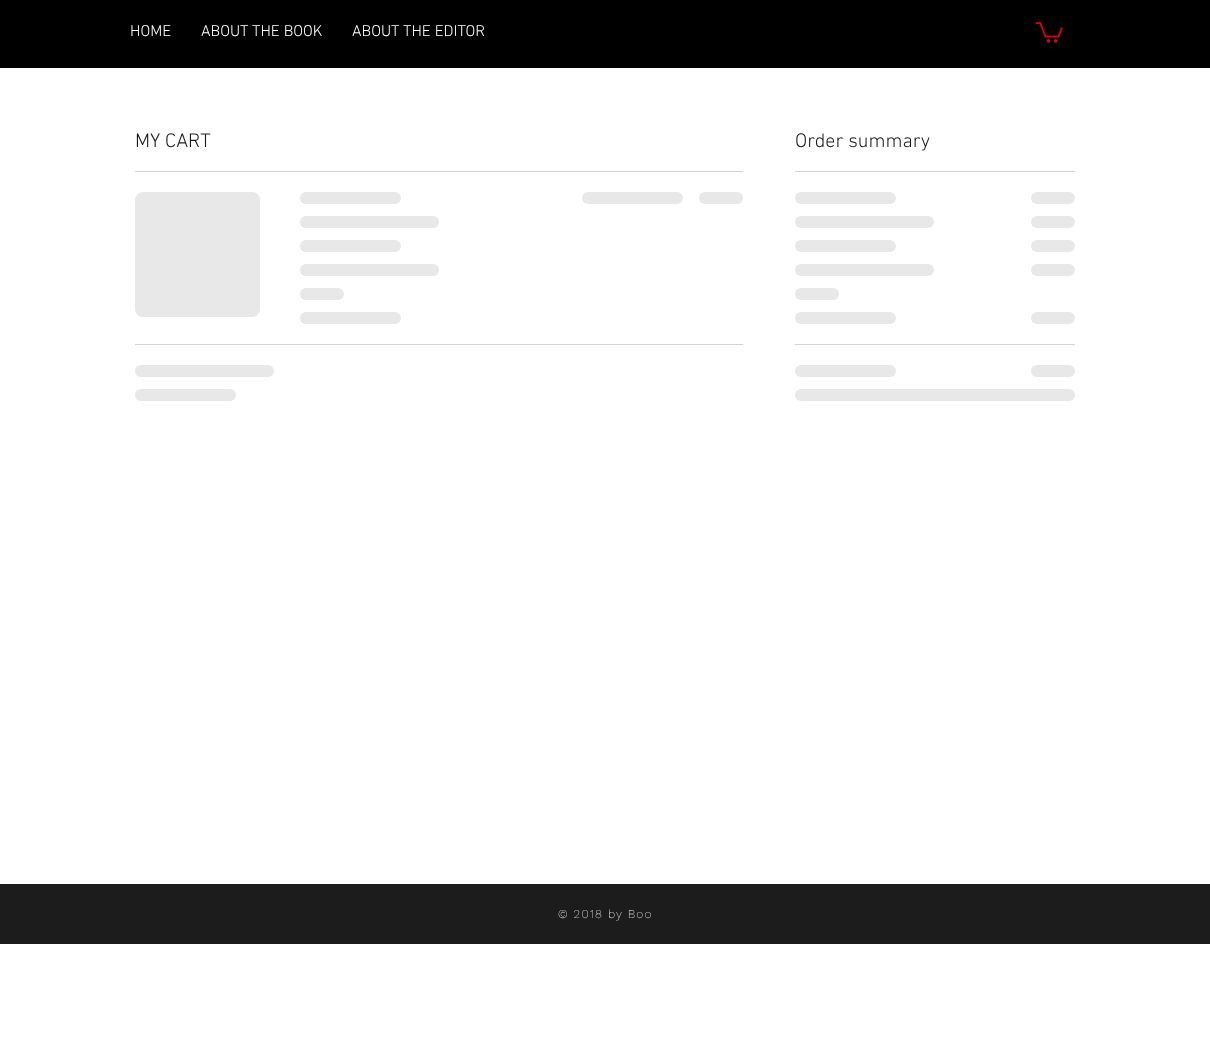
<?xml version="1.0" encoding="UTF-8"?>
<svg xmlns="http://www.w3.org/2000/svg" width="1210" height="1061">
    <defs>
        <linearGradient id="g1" gradientUnits="userSpaceOnUse" x1="135" y1="255" x2="635" y2="254"><stop offset="0.25" stop-color="#E8E8E8"/><stop offset="0.37" stop-color="#D2D2D2"/><stop offset="0.63" stop-color="#E8E8E8"/></linearGradient>
        <linearGradient id="g2" gradientUnits="userSpaceOnUse" x1="300" y1="198" x2="704" y2="198"><stop offset="0.25" stop-color="#E8E8E8"/><stop offset="0.37" stop-color="#D2D2D2"/><stop offset="0.63" stop-color="#E8E8E8"/></linearGradient>
        <linearGradient id="g3" gradientUnits="userSpaceOnUse" x1="300" y1="222" x2="856" y2="222"><stop offset="0.25" stop-color="#E8E8E8"/><stop offset="0.37" stop-color="#D2D2D2"/><stop offset="0.63" stop-color="#E8E8E8"/></linearGradient>
        <linearGradient id="g4" gradientUnits="userSpaceOnUse" x1="300" y1="246" x2="704" y2="246"><stop offset="0.25" stop-color="#E8E8E8"/><stop offset="0.37" stop-color="#D2D2D2"/><stop offset="0.63" stop-color="#E8E8E8"/></linearGradient>
        <linearGradient id="g5" gradientUnits="userSpaceOnUse" x1="300" y1="270" x2="856" y2="270"><stop offset="0.25" stop-color="#E8E8E8"/><stop offset="0.37" stop-color="#D2D2D2"/><stop offset="0.63" stop-color="#E8E8E8"/></linearGradient>
        <linearGradient id="g6" gradientUnits="userSpaceOnUse" x1="300" y1="294" x2="476" y2="294"><stop offset="0.25" stop-color="#E8E8E8"/><stop offset="0.37" stop-color="#D2D2D2"/><stop offset="0.63" stop-color="#E8E8E8"/></linearGradient>
        <linearGradient id="g7" gradientUnits="userSpaceOnUse" x1="300" y1="318" x2="704" y2="318"><stop offset="0.25" stop-color="#E8E8E8"/><stop offset="0.37" stop-color="#D2D2D2"/><stop offset="0.63" stop-color="#E8E8E8"/></linearGradient>
        <linearGradient id="g8" gradientUnits="userSpaceOnUse" x1="582" y1="198" x2="986" y2="198"><stop offset="0.25" stop-color="#E8E8E8"/><stop offset="0.37" stop-color="#D2D2D2"/><stop offset="0.63" stop-color="#E8E8E8"/></linearGradient>
        <linearGradient id="g9" gradientUnits="userSpaceOnUse" x1="699" y1="198" x2="875" y2="198"><stop offset="0.25" stop-color="#E8E8E8"/><stop offset="0.37" stop-color="#D2D2D2"/><stop offset="0.63" stop-color="#E8E8E8"/></linearGradient>
        <linearGradient id="g10" gradientUnits="userSpaceOnUse" x1="135" y1="371" x2="691" y2="371"><stop offset="0.25" stop-color="#E8E8E8"/><stop offset="0.37" stop-color="#D2D2D2"/><stop offset="0.63" stop-color="#E8E8E8"/></linearGradient>
        <linearGradient id="g11" gradientUnits="userSpaceOnUse" x1="135" y1="395" x2="539" y2="395"><stop offset="0.25" stop-color="#E8E8E8"/><stop offset="0.37" stop-color="#D2D2D2"/><stop offset="0.63" stop-color="#E8E8E8"/></linearGradient>
        <linearGradient id="g12" gradientUnits="userSpaceOnUse" x1="795" y1="198" x2="1199" y2="198"><stop offset="0.25" stop-color="#E8E8E8"/><stop offset="0.37" stop-color="#D2D2D2"/><stop offset="0.63" stop-color="#E8E8E8"/></linearGradient>
        <linearGradient id="g13" gradientUnits="userSpaceOnUse" x1="1031" y1="198" x2="1207" y2="198"><stop offset="0.25" stop-color="#E8E8E8"/><stop offset="0.37" stop-color="#D2D2D2"/><stop offset="0.63" stop-color="#E8E8E8"/></linearGradient>
        <linearGradient id="g14" gradientUnits="userSpaceOnUse" x1="795" y1="222" x2="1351" y2="222"><stop offset="0.25" stop-color="#E8E8E8"/><stop offset="0.37" stop-color="#D2D2D2"/><stop offset="0.63" stop-color="#E8E8E8"/></linearGradient>
        <linearGradient id="g15" gradientUnits="userSpaceOnUse" x1="1031" y1="222" x2="1207" y2="222"><stop offset="0.25" stop-color="#E8E8E8"/><stop offset="0.37" stop-color="#D2D2D2"/><stop offset="0.63" stop-color="#E8E8E8"/></linearGradient>
        <linearGradient id="g16" gradientUnits="userSpaceOnUse" x1="795" y1="246" x2="1199" y2="246"><stop offset="0.25" stop-color="#E8E8E8"/><stop offset="0.37" stop-color="#D2D2D2"/><stop offset="0.63" stop-color="#E8E8E8"/></linearGradient>
        <linearGradient id="g17" gradientUnits="userSpaceOnUse" x1="1031" y1="246" x2="1207" y2="246"><stop offset="0.25" stop-color="#E8E8E8"/><stop offset="0.37" stop-color="#D2D2D2"/><stop offset="0.63" stop-color="#E8E8E8"/></linearGradient>
        <linearGradient id="g18" gradientUnits="userSpaceOnUse" x1="795" y1="270" x2="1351" y2="270"><stop offset="0.25" stop-color="#E8E8E8"/><stop offset="0.37" stop-color="#D2D2D2"/><stop offset="0.63" stop-color="#E8E8E8"/></linearGradient>
        <linearGradient id="g19" gradientUnits="userSpaceOnUse" x1="1031" y1="270" x2="1207" y2="270"><stop offset="0.25" stop-color="#E8E8E8"/><stop offset="0.37" stop-color="#D2D2D2"/><stop offset="0.63" stop-color="#E8E8E8"/></linearGradient>
        <linearGradient id="g20" gradientUnits="userSpaceOnUse" x1="795" y1="294" x2="971" y2="294"><stop offset="0.25" stop-color="#E8E8E8"/><stop offset="0.37" stop-color="#D2D2D2"/><stop offset="0.63" stop-color="#E8E8E8"/></linearGradient>
        <linearGradient id="g21" gradientUnits="userSpaceOnUse" x1="795" y1="318" x2="1199" y2="318"><stop offset="0.25" stop-color="#E8E8E8"/><stop offset="0.37" stop-color="#D2D2D2"/><stop offset="0.63" stop-color="#E8E8E8"/></linearGradient>
        <linearGradient id="g22" gradientUnits="userSpaceOnUse" x1="1031" y1="318" x2="1207" y2="318"><stop offset="0.25" stop-color="#E8E8E8"/><stop offset="0.37" stop-color="#D2D2D2"/><stop offset="0.63" stop-color="#E8E8E8"/></linearGradient>
        <linearGradient id="g23" gradientUnits="userSpaceOnUse" x1="795" y1="371" x2="1199" y2="371"><stop offset="0.25" stop-color="#E8E8E8"/><stop offset="0.37" stop-color="#D2D2D2"/><stop offset="0.63" stop-color="#E8E8E8"/></linearGradient>
        <linearGradient id="g24" gradientUnits="userSpaceOnUse" x1="1031" y1="371" x2="1207" y2="371"><stop offset="0.25" stop-color="#E8E8E8"/><stop offset="0.37" stop-color="#D2D2D2"/><stop offset="0.63" stop-color="#E8E8E8"/></linearGradient>
        <linearGradient id="g25" gradientUnits="userSpaceOnUse" x1="795" y1="395" x2="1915" y2="395"><stop offset="0.25" stop-color="#E8E8E8"/><stop offset="0.37" stop-color="#D2D2D2"/><stop offset="0.63" stop-color="#E8E8E8"/></linearGradient>
    </defs>
    <rect width="100%" height="100%" fill="#FFFFFF"/>
    <rect x="0" y="0" width="1210" height="68" fill="#000000"/>
    <text x="130" y="36" font-family="'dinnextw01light'" font-size="16" font-weight="300" fill="#FFFFFF">HOME</text>
    <text x="201" y="36" font-family="'dinnextw01light'" font-size="16" font-weight="300" fill="#FFFFFF">ABOUT THE BOOK</text>
    <text x="352" y="36" font-family="'dinnextw01light'" font-size="16" font-weight="300" fill="#FFFFFF">ABOUT THE EDITOR</text>
    <image x="1036" y="22" width="27" height="21" href="img_01.png"/>
    <rect x="135" y="171" width="608" height="1" fill="#D2D2D2"/>
    <text x="135" y="147" font-family="'dinnextw01light'" font-size="20" font-weight="300" fill="#1C1C1C">MY CART</text>
    <rect x="135" y="192" width="125" height="125" rx="8" fill="url(#g1)"/>
    <rect x="300" y="192" width="101" height="12" rx="6" fill="url(#g2)"/>
    <rect x="300" y="216" width="139" height="12" rx="6" fill="url(#g3)"/>
    <rect x="300" y="240" width="101" height="12" rx="6" fill="url(#g4)"/>
    <rect x="300" y="264" width="139" height="12" rx="6" fill="url(#g5)"/>
    <rect x="300" y="288" width="44" height="12" rx="6" fill="url(#g6)"/>
    <rect x="300" y="312" width="101" height="12" rx="6" fill="url(#g7)"/>
    <rect x="582" y="192" width="101" height="12" rx="6" fill="url(#g8)"/>
    <rect x="699" y="192" width="44" height="12" rx="6" fill="url(#g9)"/>
    <rect x="135" y="344" width="608" height="1" fill="#D2D2D2"/>
    <rect x="135" y="365" width="139" height="12" rx="6" fill="url(#g10)"/>
    <rect x="135" y="389" width="101" height="12" rx="6" fill="url(#g11)"/>
    <rect x="795" y="171" width="280" height="1" fill="#D2D2D2"/>
    <text x="795" y="147" font-family="'dinnextw01light'" font-size="20" font-weight="300" fill="#1C1C1C">Order summary</text>
    <rect x="795" y="192" width="101" height="12" rx="6" fill="url(#g12)"/>
    <rect x="1031" y="192" width="44" height="12" rx="6" fill="url(#g13)"/>
    <rect x="795" y="216" width="139" height="12" rx="6" fill="url(#g14)"/>
    <rect x="1031" y="216" width="44" height="12" rx="6" fill="url(#g15)"/>
    <rect x="795" y="240" width="101" height="12" rx="6" fill="url(#g16)"/>
    <rect x="1031" y="240" width="44" height="12" rx="6" fill="url(#g17)"/>
    <rect x="795" y="264" width="139" height="12" rx="6" fill="url(#g18)"/>
    <rect x="1031" y="264" width="44" height="12" rx="6" fill="url(#g19)"/>
    <rect x="795" y="288" width="44" height="12" rx="6" fill="url(#g20)"/>
    <rect x="795" y="312" width="101" height="12" rx="6" fill="url(#g21)"/>
    <rect x="1031" y="312" width="44" height="12" rx="6" fill="url(#g22)"/>
    <rect x="795" y="344" width="280" height="1" fill="#D2D2D2"/>
    <rect x="795" y="365" width="101" height="12" rx="6" fill="url(#g23)"/>
    <rect x="1031" y="365" width="44" height="12" rx="6" fill="url(#g24)"/>
    <rect x="795" y="389" width="280" height="12" rx="6" fill="url(#g25)"/>
    <rect x="0" y="884" width="1210" height="60" fill="#1C1C1C"/>
    <text x="558" y="918" font-family="Work Sans" font-size="12" font-weight="200" letter-spacing="1.25" fill="#FFFFFF">© 2018 by Boo</text>
</svg>
